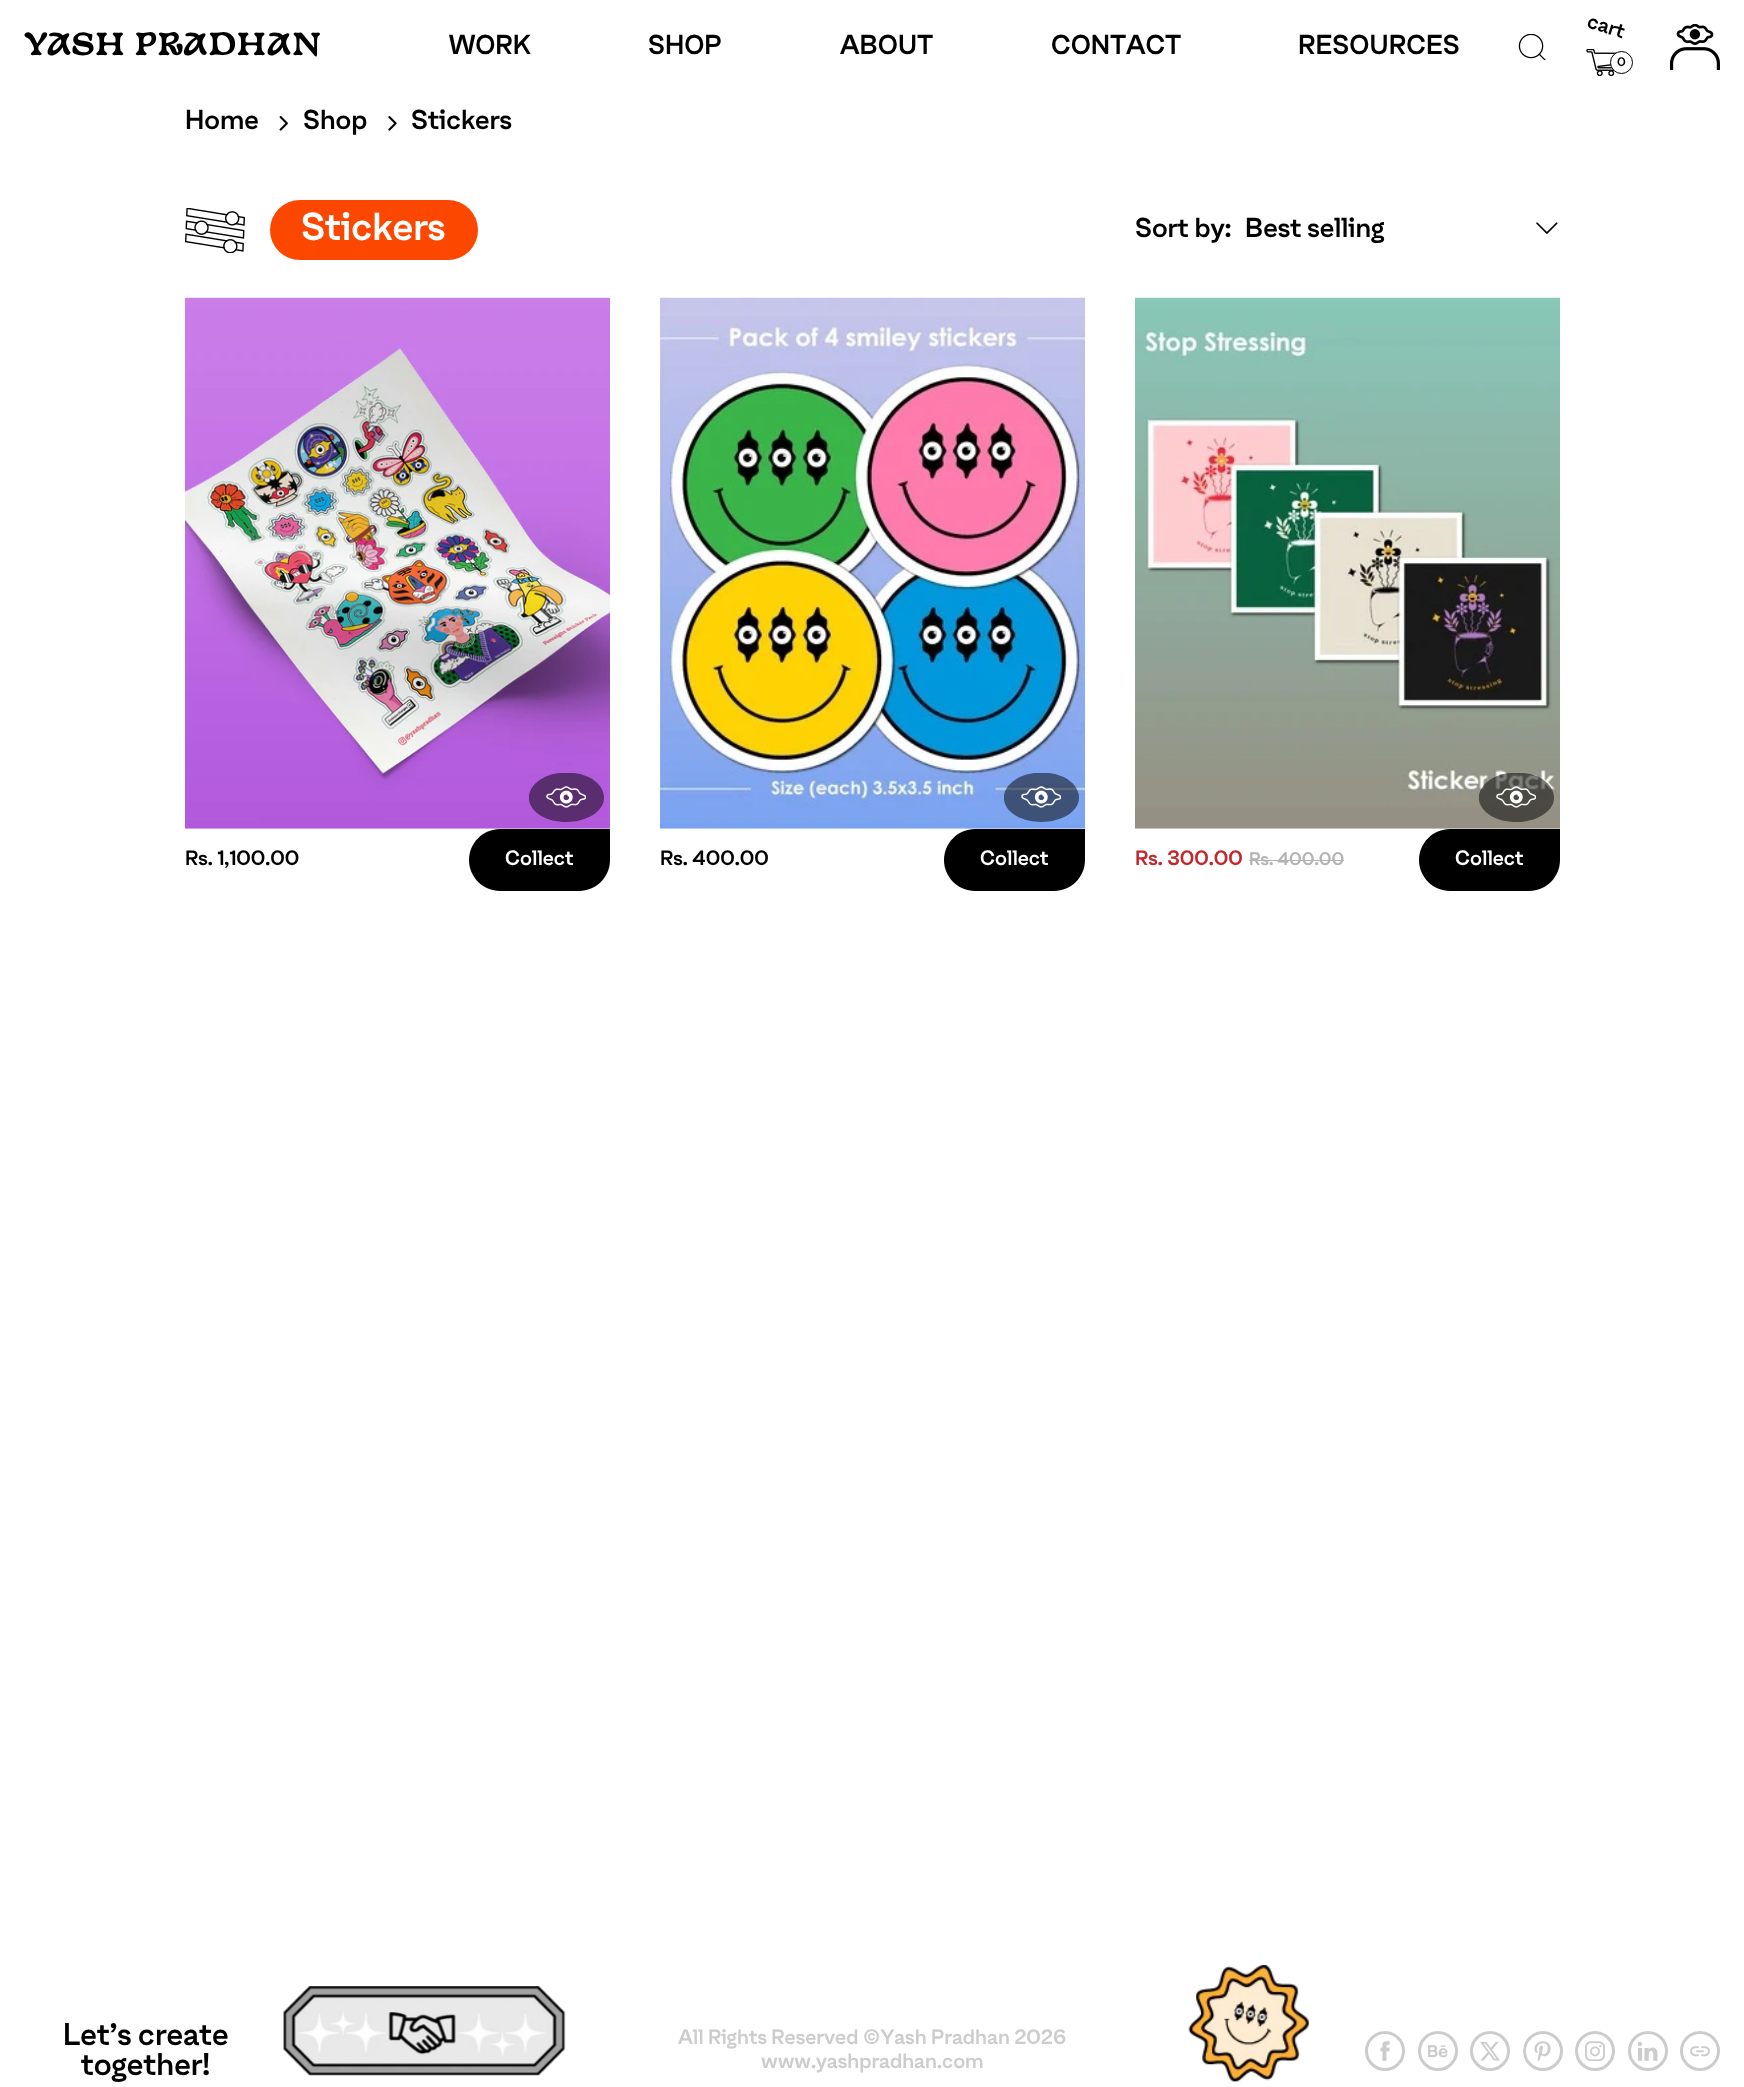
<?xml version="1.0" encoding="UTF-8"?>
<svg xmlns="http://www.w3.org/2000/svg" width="1744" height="2087">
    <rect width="100%" height="100%" fill="#FFFFFF"/>
    <text x="25" y="55" font-family="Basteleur" font-size="30" font-weight="700" fill="#000000">YASH PRADHAN</text>
    <text x="449" y="54" font-family="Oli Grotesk" font-size="26.25" font-weight="500" fill="#000000">WORK</text>
    <text x="648" y="54" font-family="Oli Grotesk" font-size="26.25" font-weight="500" fill="#000000">SHOP</text>
    <text x="840" y="54" font-family="Oli Grotesk" font-size="26.25" font-weight="500" fill="#000000">ABOUT</text>
    <text x="1051" y="54" font-family="Oli Grotesk" font-size="26.25" font-weight="500" fill="#000000">CONTACT</text>
    <text x="1298" y="54" font-family="Oli Grotesk" font-size="26.25" font-weight="500" fill="#000000">RESOURCES</text>
    <image x="1518" y="34" width="28" height="26" href="img_01.png"/>
    <text x="1586" y="27" transform="rotate(17.5 1586 27)" font-family="Oli Grotesk" font-size="20" font-weight="500" fill="#000000">cart</text>
    <image x="1586" y="49" width="31" height="27" href="img_02.png"/>
    <circle cx="1621.5" cy="62.5" r="11" fill="#FFFFFF" stroke="#000000"/>
    <text x="1617" y="66" font-family="Oli Grotesk" font-size="12" font-weight="500" fill="#000000">0</text>
    <image x="1670" y="24" width="50" height="46" href="img_03.png"/>
    <text x="185" y="129" font-family="Oli Grotesk" font-size="26.25" font-weight="500" fill="#000000">Home</text>
    <image x="279" y="116" width="9" height="15" href="img_04.png"/>
    <text x="303" y="129" font-family="Oli Grotesk" font-size="26.25" font-weight="500" fill="#000000">Shop</text>
    <image x="388" y="116" width="9" height="15" href="img_05.png"/>
    <text x="411" y="129" font-family="Oli Grotesk" font-size="26.25" font-weight="500" fill="#000000">Stickers</text>
    <image x="185" y="208" width="60" height="45" href="img_06.png"/>
    <rect x="270" y="200" width="208" height="60" rx="30" fill="#FC4700"/>
    <text x="301" y="240" font-family="Oli Grotesk" font-size="37.5" font-weight="500" fill="#FFFFFF">Stickers</text>
    <text x="1135" y="237" font-family="Oli Grotesk" font-size="26.25" font-weight="500" fill="#000000">Sort by:</text>
    <text x="1245" y="237" font-family="Oli Grotesk" font-size="26.25" font-weight="500" fill="#000000">Best selling</text>
    <image x="1536" y="222" width="22" height="12" href="img_07.png"/>
    <image x="185" y="297" width="425" height="532" href="img_08.png"/>
    <path d="M 529 795 C 531 784 543 775 559 773 H 574 C 591 775 604 785 604 798 C 604 811 587 822 566 822 C 547 822 531 813 529 800 Z" fill="#000000" fill-opacity="0.5"/>
    <image x="546" y="786" width="40" height="22" href="img_09.png"/>
    <text x="185" y="865" font-family="Oli Grotesk" font-size="20" font-weight="500" fill="#000000">Rs. 1,100.00</text>
    <path d="M 500 829 H 610 V 860 C 610 877 596 891 579 891 H 500 C 483 891 469 877 469 860 C 469 843 483 829 500 829 Z" fill="#000000"/>
    <text x="505" y="865" font-family="Oli Grotesk" font-size="20" font-weight="500" fill="#FFFFFF">Collect</text>
    <image x="660" y="297" width="425" height="532" href="img_10.png"/>
    <path d="M 1004 795 C 1006 784 1018 775 1034 773 H 1049 C 1066 775 1079 785 1079 798 C 1079 811 1062 822 1041 822 C 1022 822 1006 813 1004 800 Z" fill="#000000" fill-opacity="0.5"/>
    <image x="1021" y="786" width="40" height="22" href="img_11.png"/>
    <text x="660" y="865" font-family="Oli Grotesk" font-size="20" font-weight="500" fill="#000000">Rs. 400.00</text>
    <path d="M 975 829 H 1085 V 860 C 1085 877 1071 891 1054 891 H 975 C 958 891 944 877 944 860 C 944 843 958 829 975 829 Z" fill="#000000"/>
    <text x="980" y="865" font-family="Oli Grotesk" font-size="20" font-weight="500" fill="#FFFFFF">Collect</text>
    <image x="1135" y="297" width="425" height="532" href="img_12.png"/>
    <path d="M 1479 795 C 1481 784 1493 775 1509 773 H 1524 C 1541 775 1554 785 1554 798 C 1554 811 1537 822 1516 822 C 1497 822 1481 813 1479 800 Z" fill="#000000" fill-opacity="0.5"/>
    <image x="1496" y="786" width="40" height="22" href="img_13.png"/>
    <text x="1135" y="865" font-family="Oli Grotesk" font-size="20" font-weight="500" fill="#C1272D">Rs. 300.00</text>
    <text x="1249" y="865" font-family="Oli Grotesk" font-size="17.5" font-weight="500" fill="#B3B3B3">Rs. 400.00</text>
    <rect x="1249" y="860" width="95" height="1" fill="#B3B3B3"/>
    <path d="M 1450 829 H 1560 V 860 C 1560 877 1546 891 1529 891 H 1450 C 1433 891 1419 877 1419 860 C 1419 843 1433 829 1450 829 Z" fill="#000000"/>
    <text x="1455" y="865" font-family="Oli Grotesk" font-size="20" font-weight="500" fill="#FFFFFF">Collect</text>
    <text x="63" y="2045" font-family="Oli Grotesk" font-size="30" font-weight="500" fill="#000000">Let’s create</text>
    <text x="81" y="2075" font-family="Oli Grotesk" font-size="30" font-weight="500" fill="#000000">together!</text>
    <image x="283" y="1986" width="283" height="90" href="img_14.png"/>
    <text x="678" y="2044" font-family="Oli Grotesk" font-size="20" font-weight="500" fill="#CCCCCC">All Rights Reserved ©Yash Pradhan 2026</text>
    <text x="761" y="2068" font-family="Oli Grotesk" font-size="20" font-weight="500" fill="#CCCCCC">www.yashpradhan.com</text>
    <image x="1188" y="1964" width="121" height="118" href="img_15.png"/>
    <circle cx="1385" cy="2051" r="18.5" fill="none" stroke="#CCCCCC" stroke-width="3"/>
    <image x="1380" y="2041" width="10" height="20" href="img_16.png"/>
    <circle cx="1438" cy="2051" r="18.5" fill="none" stroke="#CCCCCC" stroke-width="3"/>
    <image x="1428" y="2045" width="20" height="13" href="img_17.png"/>
    <circle cx="1490" cy="2051" r="18.5" fill="none" stroke="#CCCCCC" stroke-width="3"/>
    <image x="1480" y="2041" width="20" height="20" href="img_18.png"/>
    <circle cx="1543" cy="2051" r="18.5" fill="none" stroke="#CCCCCC" stroke-width="3"/>
    <image x="1534" y="2041" width="17" height="20" href="img_19.png"/>
    <circle cx="1595" cy="2051" r="18.5" fill="none" stroke="#CCCCCC" stroke-width="3"/>
    <image x="1585" y="2041" width="20" height="20" href="img_20.png"/>
    <circle cx="1648" cy="2051" r="18.5" fill="none" stroke="#CCCCCC" stroke-width="3"/>
    <image x="1638" y="2041" width="20" height="20" href="img_21.png"/>
    <circle cx="1700" cy="2051" r="18.5" fill="none" stroke="#CCCCCC" stroke-width="3"/>
    <image x="1690" y="2046" width="20" height="11" href="img_22.png"/>
</svg>
